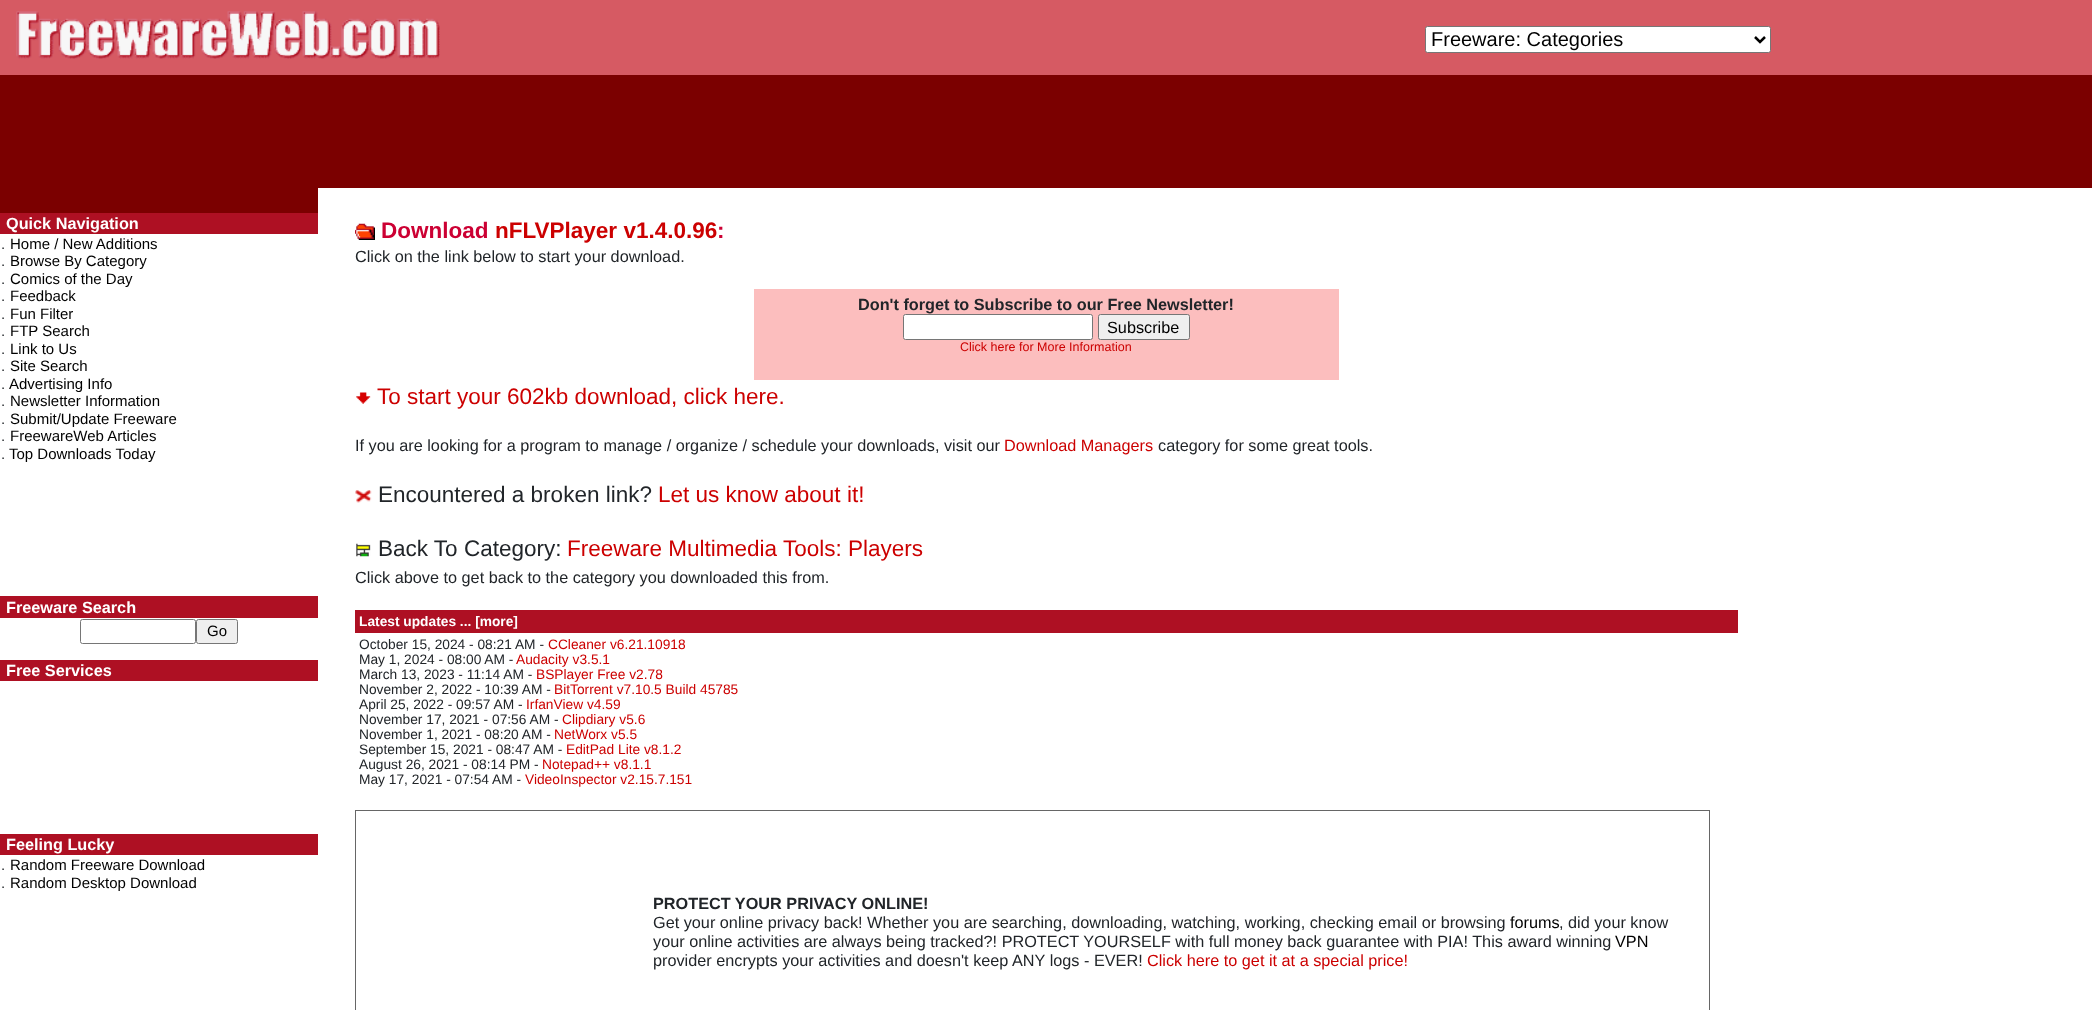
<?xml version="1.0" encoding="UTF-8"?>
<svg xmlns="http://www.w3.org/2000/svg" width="2092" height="1010">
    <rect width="100%" height="100%" fill="#FFFFFF"/>
    <rect x="0" y="0" width="2092" height="75" fill="#D65A63"/>
    <image x="16" y="11" width="424" height="48" href="img_01.png"/>
    <rect x="1425.5" y="26.5" width="345" height="26" rx="2" fill="#FFFFFF" stroke="#767676"/>
    <path d="M 1755 37 L 1760 42 L 1765 37" fill="none" stroke="#000000" stroke-width="2.5"/>
    <text x="1431" y="46" font-family="Liberation Sans" font-size="20" fill="#000000">Freeware: Categories</text>
    <rect x="0" y="75" width="2092" height="113" fill="#7B0000"/>
    <rect x="0" y="188" width="318" height="25" fill="#7B0000"/>
    <rect x="0" y="213" width="318" height="21" fill="#AE1023"/>
    <text x="6" y="229" font-family="Liberation Sans" font-size="16.25" font-weight="700" fill="#FFFFFF">Quick Navigation</text>
    <text x="1" y="249" font-family="Liberation Sans" font-size="15" fill="#212529">.</text>
    <text x="10" y="249" font-family="Liberation Sans" font-size="15" fill="#000000">Home / New Additions</text>
    <text x="1" y="266" font-family="Liberation Sans" font-size="15" fill="#212529">.</text>
    <text x="10" y="266" font-family="Liberation Sans" font-size="15" fill="#000000">Browse By Category</text>
    <text x="1" y="284" font-family="Liberation Sans" font-size="15" fill="#212529">.</text>
    <text x="10" y="284" font-family="Liberation Sans" font-size="15" fill="#000000">Comics of the Day</text>
    <text x="1" y="301" font-family="Liberation Sans" font-size="15" fill="#212529">.</text>
    <text x="10" y="301" font-family="Liberation Sans" font-size="15" fill="#000000">Feedback</text>
    <text x="1" y="319" font-family="Liberation Sans" font-size="15" fill="#212529">.</text>
    <text x="10" y="319" font-family="Liberation Sans" font-size="15" fill="#000000">Fun Filter</text>
    <text x="1" y="336" font-family="Liberation Sans" font-size="15" fill="#212529">.</text>
    <text x="10" y="336" font-family="Liberation Sans" font-size="15" fill="#000000">FTP Search</text>
    <text x="1" y="354" font-family="Liberation Sans" font-size="15" fill="#212529">.</text>
    <text x="10" y="354" font-family="Liberation Sans" font-size="15" fill="#000000">Link to Us</text>
    <text x="1" y="371" font-family="Liberation Sans" font-size="15" fill="#212529">.</text>
    <text x="10" y="371" font-family="Liberation Sans" font-size="15" fill="#000000">Site Search</text>
    <text x="1" y="389" font-family="Liberation Sans" font-size="15" fill="#212529">.</text>
    <text x="9" y="389" font-family="Liberation Sans" font-size="15" fill="#000000">Advertising Info</text>
    <text x="1" y="406" font-family="Liberation Sans" font-size="15" fill="#212529">.</text>
    <text x="10" y="406" font-family="Liberation Sans" font-size="15" fill="#000000">Newsletter Information</text>
    <text x="1" y="424" font-family="Liberation Sans" font-size="15" fill="#212529">.</text>
    <text x="10" y="424" font-family="Liberation Sans" font-size="15" fill="#000000">Submit/Update Freeware</text>
    <text x="1" y="441" font-family="Liberation Sans" font-size="15" fill="#212529">.</text>
    <text x="10" y="441" font-family="Liberation Sans" font-size="15" fill="#000000">FreewareWeb Articles</text>
    <text x="1" y="459" font-family="Liberation Sans" font-size="15" fill="#212529">.</text>
    <text x="9" y="459" font-family="Liberation Sans" font-size="15" fill="#000000">Top Downloads Today</text>
    <rect x="0" y="596" width="318" height="22" fill="#AE1023"/>
    <text x="6" y="613" font-family="Liberation Sans" font-size="16.25" font-weight="700" fill="#FFFFFF">Freeware Search</text>
    <rect x="80.5" y="619.5" width="115" height="24" rx="2" fill="none" stroke="#767676"/>
    <rect x="196.5" y="619.5" width="41" height="24" rx="2" fill="#EFEFEF" stroke="#767676"/>
    <text x="207" y="636" font-family="Liberation Sans" font-size="15" fill="#000000">Go</text>
    <rect x="0" y="660" width="318" height="21" fill="#AE1023"/>
    <text x="6" y="676" font-family="Liberation Sans" font-size="16.25" font-weight="700" fill="#FFFFFF">Free Services</text>
    <rect x="0" y="834" width="318" height="21" fill="#AE1023"/>
    <text x="6" y="850" font-family="Liberation Sans" font-size="16.25" font-weight="700" fill="#FFFFFF">Feeling Lucky</text>
    <text x="1" y="870" font-family="Liberation Sans" font-size="15" fill="#212529">.</text>
    <text x="10" y="870" font-family="Liberation Sans" font-size="15" fill="#000000">Random Freeware Download</text>
    <text x="1" y="888" font-family="Liberation Sans" font-size="15" fill="#212529">.</text>
    <text x="10" y="888" font-family="Liberation Sans" font-size="15" fill="#000000">Random Desktop Download</text>
    <image x="355" y="223" width="20" height="17" href="img_02.png"/>
    <text x="381" y="238" font-family="Liberation Sans" font-size="22.5" font-weight="700" fill="#CC0033">Download</text>
    <text x="495" y="238" font-family="Liberation Sans" font-size="22.5" font-weight="700" fill="#CC0000">nFLVPlayer v1.4.0.96</text>
    <text x="717" y="238" font-family="Liberation Sans" font-size="22.5" font-weight="700" fill="#CC0033">:</text>
    <text x="355" y="262" font-family="Liberation Sans" font-size="16.25" fill="#212529">Click on the link below to start your download.</text>
    <rect x="754" y="289" width="585" height="91" fill="#FCBEBE"/>
    <text x="858" y="310" font-family="Liberation Sans" font-size="16.25" font-weight="700" fill="#212529">Don't forget to Subscribe to our Free Newsletter!</text>
    <rect x="903.5" y="314.5" width="189" height="25" rx="2" fill="#FFFFFF" stroke="#767676"/>
    <rect x="1098.5" y="314.5" width="91" height="25" rx="2" fill="#EFEFEF" stroke="#767676"/>
    <text x="1107" y="333" font-family="Liberation Sans" font-size="16.25" fill="#000000">Subscribe</text>
    <text x="960" y="351" font-family="Liberation Sans" font-size="12.5" fill="#CC0000">Click here for More Information</text>
    <image x="356" y="392" width="15" height="12" href="img_03.png"/>
    <text x="377" y="404" font-family="Liberation Sans" font-size="22.5" fill="#CC0000">To start your 602kb download, click here.</text>
    <text x="355" y="451" font-family="Liberation Sans" font-size="16.25" fill="#212529">If you are looking for a program to manage / organize / schedule your downloads, visit our</text>
    <text x="1004" y="451" font-family="Liberation Sans" font-size="16.25" fill="#CC0000">Download Managers</text>
    <text x="1158" y="451" font-family="Liberation Sans" font-size="16.25" fill="#212529">category for some great tools.</text>
    <image x="355" y="490" width="17" height="13" href="img_04.png"/>
    <text x="378" y="502" font-family="Liberation Sans" font-size="22.5" fill="#212529">Encountered a broken link?</text>
    <text x="658" y="502" font-family="Liberation Sans" font-size="22.5" fill="#CC0000">Let us know about it!</text>
    <image x="356" y="543" width="15" height="14" href="img_05.png"/>
    <text x="378" y="556" font-family="Liberation Sans" font-size="22.5" fill="#212529">Back To Category:</text>
    <text x="567" y="556" font-family="Liberation Sans" font-size="22.5" fill="#CC0000">Freeware Multimedia Tools: Players</text>
    <text x="355" y="583" font-family="Liberation Sans" font-size="16.25" fill="#212529">Click above to get back to the category you downloaded this from.</text>
    <rect x="355" y="610" width="1383" height="23" fill="#AE1023"/>
    <text x="359" y="626" font-family="Liberation Sans" font-size="13.75" font-weight="700" fill="#FFFFFF">Latest updates ... [more]</text>
    <text x="359" y="649" font-family="Liberation Sans" font-size="13.75" fill="#212529">October 15, 2024 - 08:21 AM -</text>
    <text x="548" y="649" font-family="Liberation Sans" font-size="13.75" fill="#CC0000">CCleaner v6.21.10918</text>
    <text x="359" y="664" font-family="Liberation Sans" font-size="13.75" fill="#212529">May 1, 2024 - 08:00 AM -</text>
    <text x="516" y="664" font-family="Liberation Sans" font-size="13.75" fill="#CC0000">Audacity v3.5.1</text>
    <text x="359" y="679" font-family="Liberation Sans" font-size="13.75" fill="#212529">March 13, 2023 - 11:14 AM -</text>
    <text x="536" y="679" font-family="Liberation Sans" font-size="13.75" fill="#CC0000">BSPlayer Free v2.78</text>
    <text x="359" y="694" font-family="Liberation Sans" font-size="13.75" fill="#212529">November 2, 2022 - 10:39 AM -</text>
    <text x="554" y="694" font-family="Liberation Sans" font-size="13.75" fill="#CC0000">BitTorrent v7.10.5 Build 45785</text>
    <text x="359" y="709" font-family="Liberation Sans" font-size="13.75" fill="#212529">April 25, 2022 - 09:57 AM -</text>
    <text x="526" y="709" font-family="Liberation Sans" font-size="13.75" fill="#CC0000">IrfanView v4.59</text>
    <text x="359" y="724" font-family="Liberation Sans" font-size="13.75" fill="#212529">November 17, 2021 - 07:56 AM -</text>
    <text x="562" y="724" font-family="Liberation Sans" font-size="13.75" fill="#CC0000">Clipdiary v5.6</text>
    <text x="359" y="739" font-family="Liberation Sans" font-size="13.75" fill="#212529">November 1, 2021 - 08:20 AM -</text>
    <text x="554" y="739" font-family="Liberation Sans" font-size="13.75" fill="#CC0000">NetWorx v5.5</text>
    <text x="359" y="754" font-family="Liberation Sans" font-size="13.75" fill="#212529">September 15, 2021 - 08:47 AM -</text>
    <text x="566" y="754" font-family="Liberation Sans" font-size="13.75" fill="#CC0000">EditPad Lite v8.1.2</text>
    <text x="359" y="769" font-family="Liberation Sans" font-size="13.75" fill="#212529">August 26, 2021 - 08:14 PM -</text>
    <text x="542" y="769" font-family="Liberation Sans" font-size="13.75" fill="#CC0000">Notepad++ v8.1.1</text>
    <text x="359" y="784" font-family="Liberation Sans" font-size="13.75" fill="#212529">May 17, 2021 - 07:54 AM -</text>
    <text x="525" y="784" font-family="Liberation Sans" font-size="13.75" fill="#CC0000">VideoInspector v2.15.7.151</text>
    <rect x="355" y="810" width="1355" height="200" fill="#666666"/>
    <rect x="356" y="811" width="1353" height="199" fill="#FFFFFF"/>
    <text x="653" y="909" font-family="Liberation Sans" font-size="16.25" font-weight="700" fill="#212529">PROTECT YOUR PRIVACY ONLINE!</text>
    <text x="653" y="928" font-family="Liberation Sans" font-size="16.25" fill="#212529">Get your online privacy back! Whether you are searching, downloading, watching, working, checking email or browsing</text>
    <text x="1510" y="928" font-family="Liberation Sans" font-size="16.25" fill="#000000">forums</text>
    <text x="1559" y="928" font-family="Liberation Sans" font-size="16.25" fill="#212529">, did your know</text>
    <text x="653" y="947" font-family="Liberation Sans" font-size="16.25" fill="#212529">your online activities are always being tracked?! PROTECT YOURSELF with full money back guarantee with PIA! This award winning</text>
    <text x="1615" y="947" font-family="Liberation Sans" font-size="16.25" fill="#000000">VPN</text>
    <text x="653" y="966" font-family="Liberation Sans" font-size="16.25" fill="#212529">provider encrypts your activities and doesn't keep ANY logs - EVER!</text>
    <text x="1147" y="966" font-family="Liberation Sans" font-size="16.25" fill="#CC0000">Click here to get it at a special price!</text>
</svg>
